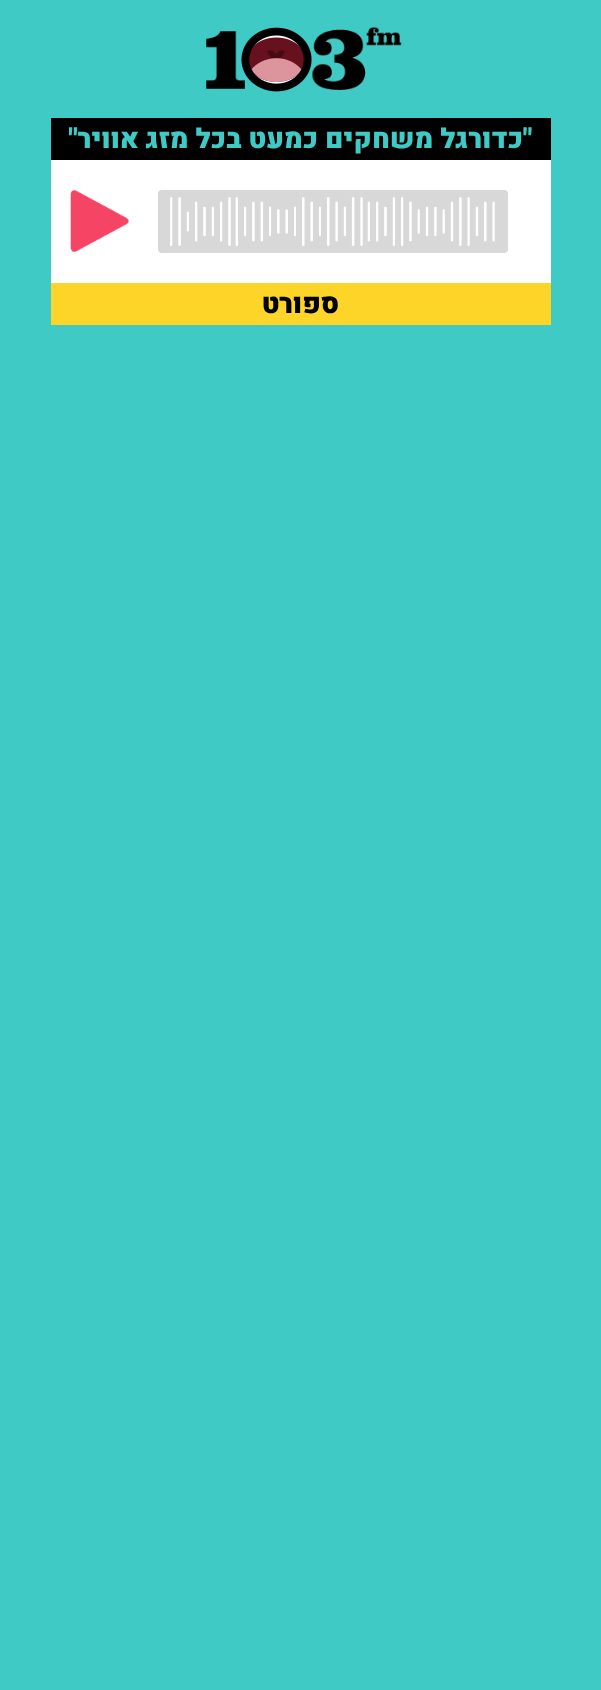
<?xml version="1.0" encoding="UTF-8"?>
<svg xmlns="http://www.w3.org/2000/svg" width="601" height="1690">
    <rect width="100%" height="100%" fill="#3FCAC5"/>
    <rect x="51" y="160" width="500" height="123" fill="#FFFFFF"/>
    <image x="312" y="27" width="90" height="63" href="img_01.png"/>
    <image x="206" y="31" width="39" height="58" href="img_03.png"/>
    <image x="241" y="27" width="71" height="65" href="img_02.png"/>
    <rect x="51" y="118" width="500" height="42" fill="#000000"/>
    <text x="532" y="148" font-family="Heebo" font-size="27.5" font-weight="900" direction="rtl" fill="#3FCAC5">"כדורגל משחקים כמעט בכל מזג אוויר"</text>
    <rect x="158" y="190" width="350" height="63" rx="4" fill="#D8D8D8"/>
    <image x="170" y="197" width="325" height="50" href="img_04.png"/>
    <image x="70" y="190" width="59" height="62" href="img_05.png"/>
    <rect x="51" y="283" width="500" height="42" fill="#FDD428"/>
    <text x="339" y="313" font-family="Heebo" font-size="27.5" font-weight="900" direction="rtl" fill="#000000">ספורט</text>
</svg>
